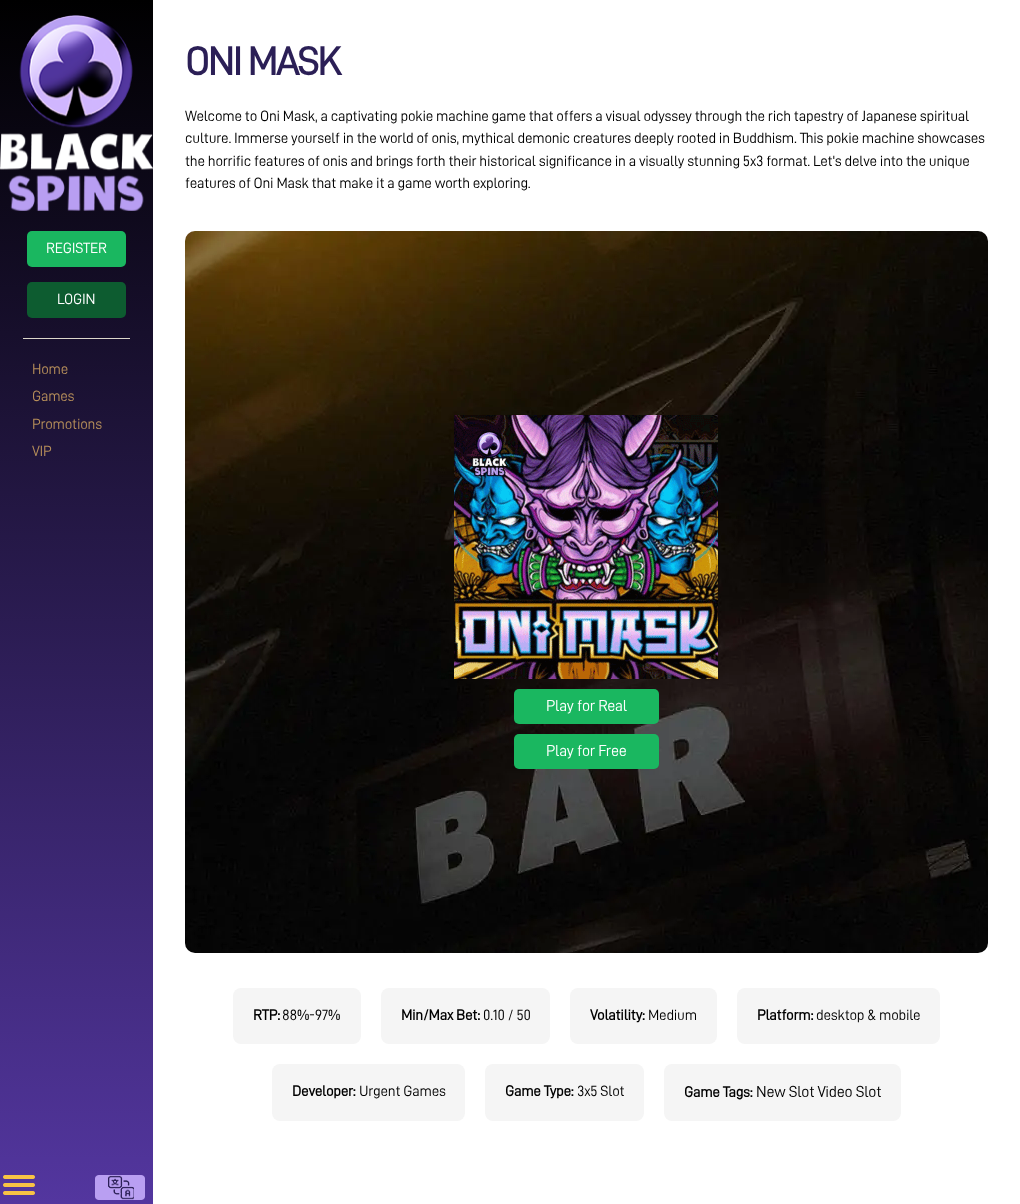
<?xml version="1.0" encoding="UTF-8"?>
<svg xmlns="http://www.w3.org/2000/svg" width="1020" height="1204">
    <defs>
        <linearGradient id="g1" gradientUnits="userSpaceOnUse" x1="76" y1="0" x2="77" y2="1204"><stop offset="0" stop-color="#000000"/><stop offset="1" stop-color="#53369F"/></linearGradient>
    </defs>
    <rect width="100%" height="100%" fill="#FFFFFF"/>
    <rect x="0" y="0" width="153" height="1204" fill="url(#g1)"/>
    <image x="0" y="15" width="153" height="196" href="img_01.png"/>
    <rect x="27" y="231" width="99" height="36" rx="5" fill="#1AB760"/>
    <text x="46" y="253" font-family="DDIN" font-size="15" letter-spacing="-0.23" fill="#FFFFFF">REGISTER</text>
    <rect x="27" y="282" width="99" height="36" rx="5" fill="#0D5C30"/>
    <text x="57" y="304" font-family="DDIN" font-size="15" letter-spacing="-0.23" fill="#FFFFFF">LOGIN</text>
    <rect x="23" y="338" width="107" height="1" fill="#DCD7CA"/>
    <text font-family="DDIN" font-size="15" letter-spacing="-0.23" fill="#B68E5A">
        <tspan x="32" y="374">Home</tspan>
        <tspan x="32" y="401">Games</tspan>
        <tspan x="32" y="429">Promotions</tspan>
        <tspan x="32" y="456">VIP</tspan>
    </text>
    <image x="3" y="1175" width="32" height="20" href="img_02.png"/>
    <image x="95" y="1175" width="50" height="25" href="img_03.png"/>
    <text x="185" y="75" font-family="DDIN" font-size="40" font-weight="700" letter-spacing="-1.75" fill="#2B1F56">ONI MASK</text>
    <text font-family="DDIN" font-size="15" letter-spacing="-0.23" fill="#000000">
        <tspan x="185" y="121">Welcome to Oni Mask, a captivating pokie machine game that offers a visual odyssey through the rich tapestry of Japanese spiritual</tspan>
        <tspan x="185" y="143">culture. Immerse yourself in the world of onis, mythical demonic creatures deeply rooted in Buddhism. This pokie machine showcases</tspan>
        <tspan x="185" y="166">the horrific features of onis and brings forth their historical significance in a visually stunning 5x3 format. Let's delve into the unique</tspan>
        <tspan x="185" y="188">features of Oni Mask that make it a game worth exploring.</tspan>
    </text>
    <image x="185" y="231" width="803" height="722" href="img_04.png"/>
    <image x="454" y="415" width="264" height="264" href="img_05.png"/>
    <rect x="514" y="689" width="145" height="35" rx="5" fill="#1AB760"/>
    <text x="546" y="711" font-family="DDIN" font-size="16" letter-spacing="-0.23" fill="#FFFFFF">Play for Real</text>
    <rect x="514" y="734" width="145" height="35" rx="5" fill="#1AB760"/>
    <text x="546" y="756" font-family="DDIN" font-size="16" letter-spacing="-0.23" fill="#FFFFFF">Play for Free</text>
    <rect x="233" y="988" width="128" height="56" rx="8" fill="#F5F5F5"/>
    <text x="253" y="1020" font-family="DDIN" font-size="15" font-weight="700" letter-spacing="-0.23" fill="#000000">RTP:</text>
    <text x="282" y="1020" font-family="DDIN" font-size="15" letter-spacing="-0.23" fill="#000000">88%-97%</text>
    <rect x="381" y="988" width="169" height="56" rx="8" fill="#F5F5F5"/>
    <text x="401" y="1020" font-family="DDIN" font-size="15" font-weight="700" letter-spacing="-0.23" fill="#000000">Min/Max Bet:</text>
    <text x="483" y="1020" font-family="DDIN" font-size="15" letter-spacing="-0.23" fill="#000000">0.10 / 50</text>
    <rect x="570" y="988" width="147" height="56" rx="8" fill="#F5F5F5"/>
    <text x="590" y="1020" font-family="DDIN" font-size="15" font-weight="700" letter-spacing="-0.23" fill="#000000">Volatility:</text>
    <text x="648" y="1020" font-family="DDIN" font-size="15" letter-spacing="-0.23" fill="#000000">Medium</text>
    <rect x="737" y="988" width="203" height="56" rx="8" fill="#F5F5F5"/>
    <text x="757" y="1020" font-family="DDIN" font-size="15" font-weight="700" letter-spacing="-0.23" fill="#000000">Platform:</text>
    <text x="816" y="1020" font-family="DDIN" font-size="15" letter-spacing="-0.23" fill="#000000">desktop &amp; mobile</text>
    <rect x="272" y="1064" width="193" height="57" rx="8" fill="#F5F5F5"/>
    <text x="292" y="1096" font-family="DDIN" font-size="15" font-weight="700" letter-spacing="-0.23" fill="#000000">Developer:</text>
    <text x="359" y="1096" font-family="DDIN" font-size="15" letter-spacing="-0.23" fill="#000000">Urgent Games</text>
    <rect x="485" y="1064" width="159" height="57" rx="8" fill="#F5F5F5"/>
    <text x="505" y="1096" font-family="DDIN" font-size="15" font-weight="700" letter-spacing="-0.23" fill="#000000">Game Type:</text>
    <text x="577" y="1096" font-family="DDIN" font-size="15" letter-spacing="-0.23" fill="#000000">3x5 Slot</text>
    <rect x="664" y="1064" width="237" height="57" rx="8" fill="#F5F5F5"/>
    <text x="684" y="1097" font-family="DDIN" font-size="15" font-weight="700" letter-spacing="-0.23" fill="#000000">Game Tags:</text>
    <text x="756" y="1097" font-family="DDIN" font-size="16" letter-spacing="-0.23" fill="#000000">New Slot Video Slot</text>
</svg>
